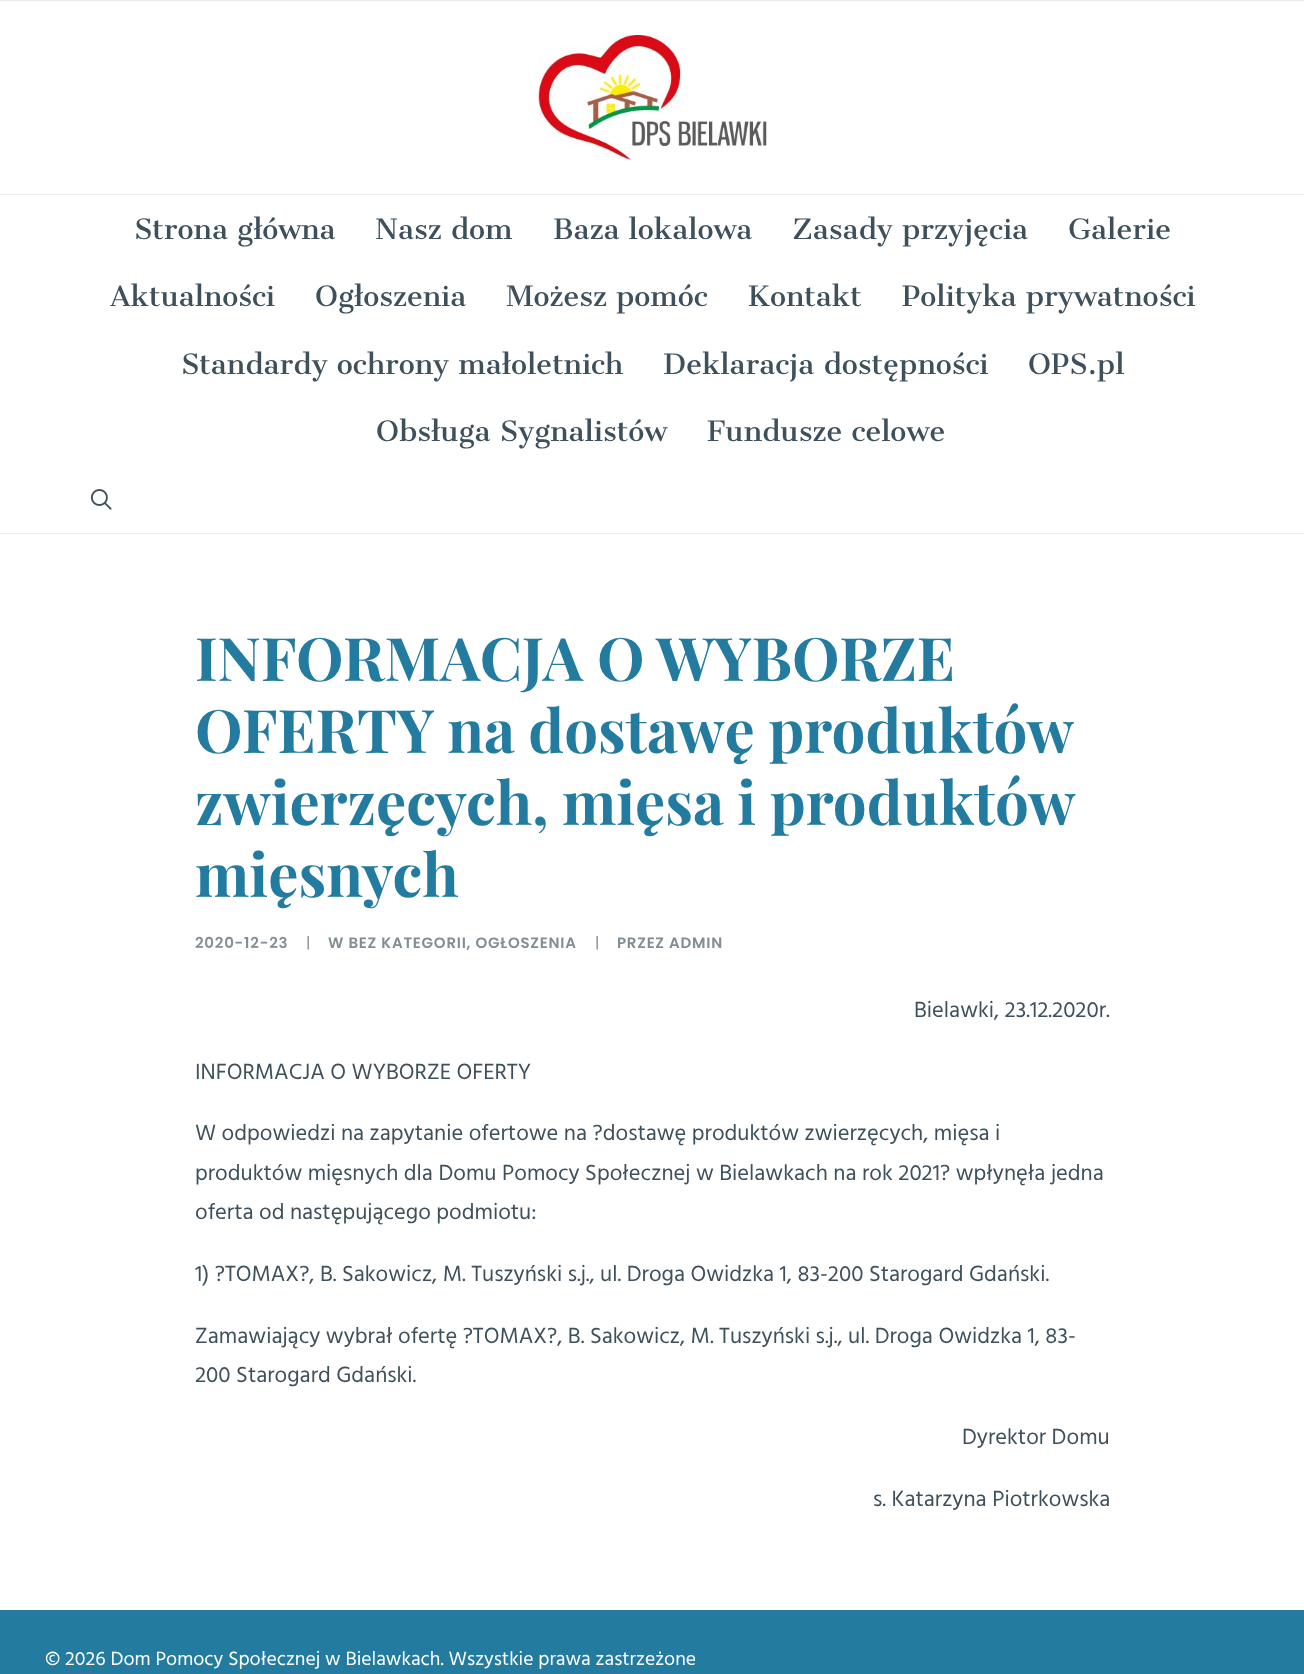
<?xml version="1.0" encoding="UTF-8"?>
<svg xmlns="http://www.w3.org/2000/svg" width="1304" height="1674">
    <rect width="100%" height="100%" fill="#FFFFFF"/>
    <rect x="0" y="0" width="1304" height="1" fill="#EAEAEA"/>
    <image x="538" y="35" width="229" height="125" href="img_01.png"/>
    <rect x="0" y="194" width="1304" height="1" fill="#EAEAEA"/>
    <rect x="0" y="533" width="1304" height="1" fill="#EAEAEA"/>
    <text x="134" y="239" font-family="Cantata One" font-size="27.5" fill="#3E505B">Strona główna</text>
    <text x="375" y="239" font-family="Cantata One" font-size="27.5" fill="#3E505B">Nasz dom</text>
    <text x="553" y="239" font-family="Cantata One" font-size="27.5" fill="#3E505B">Baza lokalowa</text>
    <text x="792" y="239" font-family="Cantata One" font-size="27.5" fill="#3E505B">Zasady przyjęcia</text>
    <text x="1068" y="239" font-family="Cantata One" font-size="27.5" fill="#3E505B">Galerie</text>
    <text x="110" y="306" font-family="Cantata One" font-size="27.5" fill="#3E505B">Aktualności</text>
    <text x="315" y="306" font-family="Cantata One" font-size="27.5" fill="#3E505B">Ogłoszenia</text>
    <text x="506" y="306" font-family="Cantata One" font-size="27.5" fill="#3E505B">Możesz pomóc</text>
    <text x="747" y="306" font-family="Cantata One" font-size="27.5" fill="#3E505B">Kontakt</text>
    <text x="902" y="306" font-family="Cantata One" font-size="27.5" fill="#3E505B">Polityka prywatności</text>
    <text x="181" y="374" font-family="Cantata One" font-size="27.5" fill="#3E505B">Standardy ochrony małoletnich</text>
    <text x="663" y="374" font-family="Cantata One" font-size="27.5" fill="#3E505B">Deklaracja dostępności</text>
    <text x="1028" y="374" font-family="Cantata One" font-size="27.5" fill="#3E505B">OPS.pl</text>
    <text x="376" y="441" font-family="Cantata One" font-size="27.5" fill="#3E505B">Obsługa Sygnalistów</text>
    <text x="707" y="441" font-family="Cantata One" font-size="27.5" fill="#3E505B">Fundusze celowe</text>
    <image x="90" y="489" width="22" height="21" href="img_02.png"/>
    <text font-family="Playfair Display" font-size="60" font-weight="700" fill="#247BA0">
        <tspan x="195" y="681">INFORMACJA O WYBORZE</tspan>
        <tspan x="195" y="753" word-spacing="-0.5">OFERTY na dostawę produktów</tspan>
        <tspan x="195" y="825" word-spacing="-0.5">zwierzęcych, mięsa i produktów</tspan>
        <tspan x="195" y="897">mięsnych</tspan>
    </text>
    <text x="195" y="948" font-family="Poppins" font-size="15" font-weight="600" letter-spacing="0.75" fill="#828D94">2020-12-23</text>
    <text x="306" y="948" font-family="Poppins" font-size="15" letter-spacing="0.75" fill="#828D94">|</text>
    <text x="328" y="948" font-family="Poppins" font-size="15" font-weight="600" letter-spacing="0.75" fill="#828D94">W BEZ KATEGORII, OGŁOSZENIA</text>
    <text x="595" y="948" font-family="Poppins" font-size="15" letter-spacing="0.75" fill="#828D94">|</text>
    <text x="617" y="948" font-family="Poppins" font-size="15" font-weight="600" letter-spacing="0.75" fill="#828D94">PRZEZ ADMIN</text>
    <text x="914" y="1017" font-family="Hind" font-size="22.5" fill="#3E505B">Bielawki, 23.12.2020r.</text>
    <text x="195" y="1079" font-family="Hind" font-size="22.5" fill="#3E505B">INFORMACJA O WYBORZE OFERTY</text>
    <text font-family="Hind" font-size="22.5" fill="#3E505B">
        <tspan x="195" y="1140">W odpowiedzi na zapytanie ofertowe na ?dostawę produktów zwierzęcych, mięsa i</tspan>
        <tspan x="195" y="1180">produktów mięsnych dla Domu Pomocy Społecznej w Bielawkach na rok 2021? wpłynęła jedna</tspan>
        <tspan x="195" y="1219">oferta od następującego podmiotu:</tspan>
    </text>
    <text x="195" y="1281" font-family="Hind" font-size="22.5" fill="#3E505B">1) ?TOMAX?, B. Sakowicz, M. Tuszyński s.j., ul. Droga Owidzka 1, 83-200 Starogard Gdański.</text>
    <text font-family="Hind" font-size="22.5" fill="#3E505B">
        <tspan x="195" y="1343">Zamawiający wybrał ofertę ?TOMAX?, B. Sakowicz, M. Tuszyński s.j., ul. Droga Owidzka 1, 83-</tspan>
        <tspan x="195" y="1382">200 Starogard Gdański.</tspan>
    </text>
    <text x="962" y="1444" font-family="Hind" font-size="22.5" fill="#3E505B">Dyrektor Domu</text>
    <text x="873" y="1506" font-family="Hind" font-size="22.5" fill="#3E505B">s. Katarzyna Piotrkowska</text>
    <rect x="0" y="1610" width="1304" height="64" fill="#247BA0"/>
    <text x="45" y="1665" font-family="Hind" font-size="19.7" fill="#FFFFFF">© 2026 Dom Pomocy Społecznej w Bielawkach. Wszystkie prawa zastrzeżone</text>
</svg>
